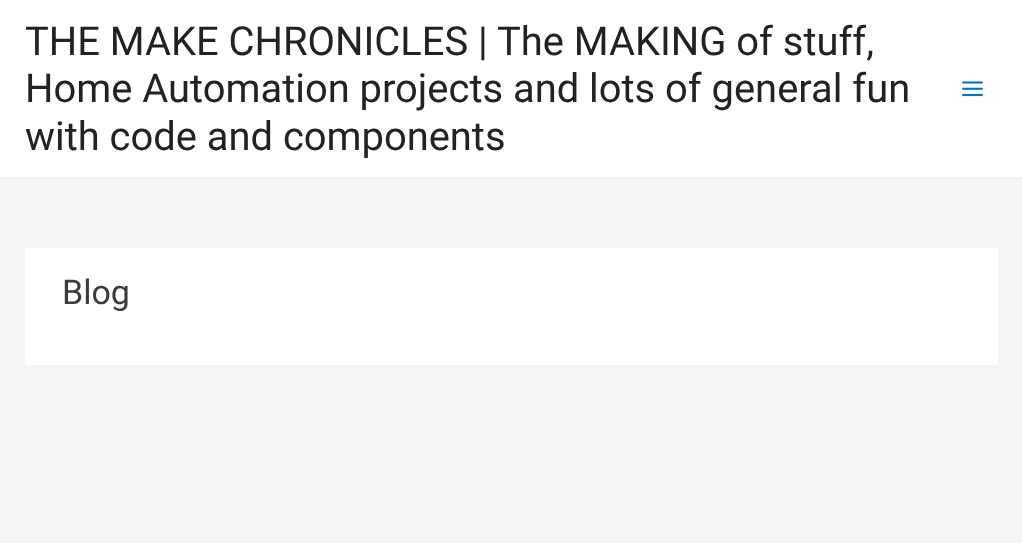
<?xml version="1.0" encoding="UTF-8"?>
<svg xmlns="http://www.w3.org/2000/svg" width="1022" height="543">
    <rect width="100%" height="100%" fill="#F5F5F5"/>
    <rect x="0" y="0" width="1022" height="178" fill="#FFFFFF"/>
    <rect x="0" y="178" width="1022" height="1" fill="#EAEAEA"/>
    <text font-family="Roboto" font-size="39.9" fill="#222222">
        <tspan x="25" y="55">THE MAKE CHRONICLES | The MAKING of stuff,</tspan>
        <tspan x="25" y="102">Home Automation projects and lots of general fun</tspan>
        <tspan x="25" y="150">with code and components</tspan>
    </text>
    <image x="962" y="81" width="21" height="16" href="img_01.png"/>
    <rect x="25" y="248" width="973" height="117" fill="#FFFFFF"/>
    <text x="62" y="304" font-family="Roboto" font-size="34" fill="#3A3A3A">Blog</text>
</svg>
